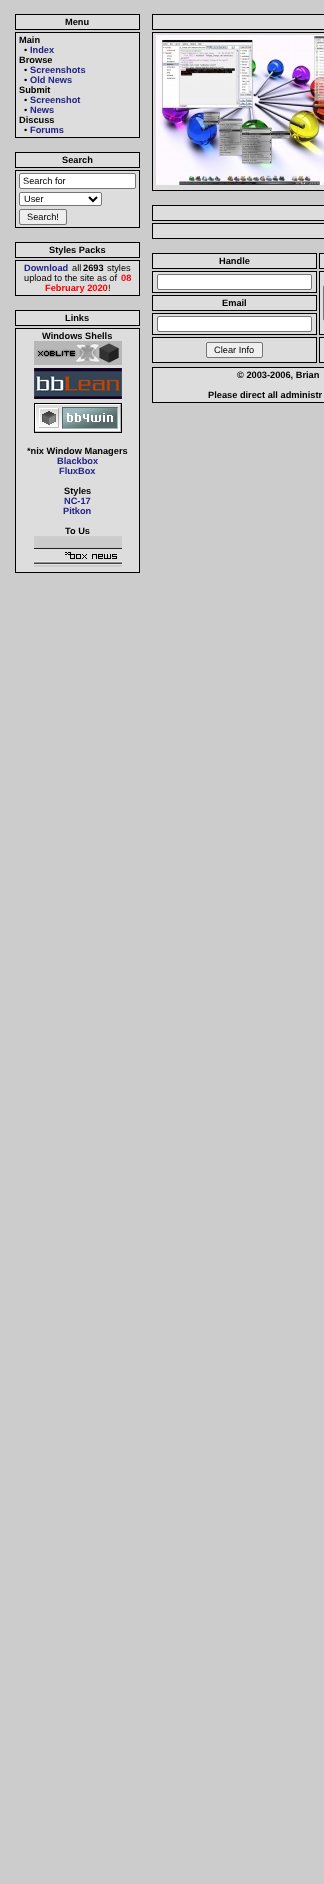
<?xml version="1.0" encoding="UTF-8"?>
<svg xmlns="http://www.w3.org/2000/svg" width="324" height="1884">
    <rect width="100%" height="100%" fill="#CCCCCC"/>
    <rect x="15.5" y="14.5" width="124" height="15" fill="#DDDDDD" stroke="#000000"/>
    <text x="65" y="25" font-family="Liberation Sans" font-size="9.25" font-weight="700" fill="#000000">Menu</text>
    <rect x="15.5" y="32.5" width="124" height="105" fill="#DDDDDD" stroke="#000000"/>
    <text x="19" y="43" font-family="Liberation Sans" font-size="9.25" font-weight="700" fill="#000000">Main</text>
    <text x="24" y="53" font-family="Liberation Sans" font-size="9.25" fill="#000000">•</text>
    <text x="30" y="53" font-family="Liberation Sans" font-size="9.25" font-weight="700" fill="#222288">Index</text>
    <text x="19" y="63" font-family="Liberation Sans" font-size="9.25" font-weight="700" fill="#000000">Browse</text>
    <text x="24" y="73" font-family="Liberation Sans" font-size="9.25" fill="#000000">•</text>
    <text x="30" y="73" font-family="Liberation Sans" font-size="9.25" font-weight="700" fill="#222288">Screenshots</text>
    <text x="24" y="83" font-family="Liberation Sans" font-size="9.25" fill="#000000">•</text>
    <text x="30" y="83" font-family="Liberation Sans" font-size="9.25" font-weight="700" fill="#222288">Old News</text>
    <text x="19" y="93" font-family="Liberation Sans" font-size="9.25" font-weight="700" fill="#000000">Submit</text>
    <text x="24" y="103" font-family="Liberation Sans" font-size="9.25" fill="#000000">•</text>
    <text x="30" y="103" font-family="Liberation Sans" font-size="9.25" font-weight="700" fill="#222288">Screenshot</text>
    <text x="24" y="113" font-family="Liberation Sans" font-size="9.25" fill="#000000">•</text>
    <text x="30" y="113" font-family="Liberation Sans" font-size="9.25" font-weight="700" fill="#222288">News</text>
    <text x="19" y="123" font-family="Liberation Sans" font-size="9.25" font-weight="700" fill="#000000">Discuss</text>
    <text x="24" y="133" font-family="Liberation Sans" font-size="9.25" fill="#000000">•</text>
    <text x="30" y="133" font-family="Liberation Sans" font-size="9.25" font-weight="700" fill="#222288">Forums</text>
    <rect x="15.5" y="152.5" width="124" height="15" fill="#DDDDDD" stroke="#000000"/>
    <text x="62" y="163" font-family="Liberation Sans" font-size="9.25" font-weight="700" fill="#000000">Search</text>
    <rect x="15.5" y="170.5" width="124" height="57" fill="#DDDDDD" stroke="#000000"/>
    <rect x="19.5" y="173.5" width="116" height="15" rx="1.5" fill="#FFFFFF" stroke="#767676"/>
    <text x="23" y="184" font-family="Liberation Sans" font-size="9.25" fill="#000000">Search for</text>
    <rect x="19.5" y="192.5" width="82" height="13" rx="1.5" fill="#FFFFFF" stroke="#767676"/>
    <path d="M 89 197 L 93 201 L 97 197" fill="none" stroke="#000000" stroke-width="2"/>
    <text x="24" y="202" font-family="Liberation Sans" font-size="9.25" fill="#000000">User</text>
    <rect x="19.5" y="209.5" width="47" height="15" rx="1.5" fill="#EFEFEF" stroke="#767676"/>
    <text x="27" y="220" font-family="Liberation Sans" font-size="9.25" fill="#000000">Search!</text>
    <rect x="15.5" y="242.5" width="124" height="15" fill="#DDDDDD" stroke="#000000"/>
    <text x="49" y="253" font-family="Liberation Sans" font-size="9.25" font-weight="700" fill="#000000">Styles Packs</text>
    <rect x="15.5" y="260.5" width="124" height="35" fill="#DDDDDD" stroke="#000000"/>
    <text x="24" y="271" font-family="Liberation Sans" font-size="9.25" font-weight="700" fill="#222288">Download</text>
    <text x="72" y="271" font-family="Liberation Sans" font-size="9.25" fill="#000000">all</text>
    <text x="83" y="271" font-family="Liberation Sans" font-size="9.25" font-weight="700" fill="#000000">2693</text>
    <text x="107" y="271" font-family="Liberation Sans" font-size="9.25" fill="#000000">styles</text>
    <text x="24" y="281" font-family="Liberation Sans" font-size="9.25" fill="#000000">upload to the site as of</text>
    <text x="121" y="281" font-family="Liberation Sans" font-size="9.25" font-weight="700" fill="#FF0000">08</text>
    <text x="45" y="291" font-family="Liberation Sans" font-size="9.25" font-weight="700" fill="#FF0000">February 2020</text>
    <text x="108" y="291" font-family="Liberation Sans" font-size="9.25" fill="#000000">!</text>
    <rect x="15.5" y="310.5" width="124" height="15" fill="#DDDDDD" stroke="#000000"/>
    <text x="65" y="321" font-family="Liberation Sans" font-size="9.25" font-weight="700" fill="#000000">Links</text>
    <rect x="15.5" y="328.5" width="124" height="244" fill="#DDDDDD" stroke="#000000"/>
    <text x="42" y="339" font-family="Liberation Sans" font-size="9.25" font-weight="700" fill="#000000">Windows Shells</text>
    <image x="34" y="341" width="88" height="24" href="img_01.png"/>
    <image x="34" y="368" width="88" height="31" href="img_02.png"/>
    <image x="34" y="403" width="88" height="30" href="img_03.png"/>
    <text x="27" y="454" font-family="Liberation Sans" font-size="9.25" font-weight="700" fill="#000000">*nix Window Managers</text>
    <text x="57" y="464" font-family="Liberation Sans" font-size="9.25" font-weight="700" fill="#222288">Blackbox</text>
    <text x="59" y="474" font-family="Liberation Sans" font-size="9.25" font-weight="700" fill="#222288">FluxBox</text>
    <text x="64" y="494" font-family="Liberation Sans" font-size="9.25" font-weight="700" fill="#000000">Styles</text>
    <text x="64" y="504" font-family="Liberation Sans" font-size="9.25" font-weight="700" fill="#222288">NC-17</text>
    <text x="63" y="514" font-family="Liberation Sans" font-size="9.25" font-weight="700" fill="#222288">Pitkon</text>
    <text x="65" y="534" font-family="Liberation Sans" font-size="9.25" font-weight="700" fill="#000000">To Us</text>
    <image x="34" y="536" width="88" height="31" href="img_04.png"/>
    <rect x="152.5" y="14.5" width="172" height="15" fill="#DDDDDD" stroke="#000000"/>
    <rect x="152.5" y="32.5" width="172" height="158" fill="#DDDDDD" stroke="#000000"/>
    <image x="156" y="35" width="168" height="150" href="img_05.png"/>
    <rect x="152.5" y="205.5" width="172" height="15" fill="#DDDDDD" stroke="#000000"/>
    <rect x="152.5" y="223.5" width="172" height="15" fill="#DDDDDD" stroke="#000000"/>
    <rect x="152.5" y="253.5" width="164" height="15" fill="#DDDDDD" stroke="#000000"/>
    <text x="219" y="264" font-family="Liberation Sans" font-size="9.25" font-weight="700" fill="#000000">Handle</text>
    <rect x="319.5" y="253.5" width="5" height="15" fill="#DDDDDD" stroke="#000000"/>
    <rect x="152.5" y="271.5" width="164" height="21" fill="#DDDDDD" stroke="#000000"/>
    <rect x="157.5" y="274.5" width="154" height="15" rx="1.5" fill="#FFFFFF" stroke="#767676"/>
    <rect x="319.5" y="271.5" width="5" height="63" fill="#DDDDDD" stroke="#000000"/>
    <rect x="323.5" y="285.5" width="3" height="35" rx="1.5" fill="none" stroke="#767676"/>
    <rect x="152.5" y="295.5" width="164" height="15" fill="#DDDDDD" stroke="#000000"/>
    <text x="222" y="306" font-family="Liberation Sans" font-size="9.25" font-weight="700" fill="#000000">Email</text>
    <rect x="152.5" y="313.5" width="164" height="21" fill="#DDDDDD" stroke="#000000"/>
    <rect x="157.5" y="316.5" width="154" height="15" rx="1.5" fill="#FFFFFF" stroke="#767676"/>
    <rect x="152.5" y="337.5" width="164" height="25" fill="#DDDDDD" stroke="#000000"/>
    <rect x="206.5" y="342.5" width="56" height="15" rx="1.5" fill="#EFEFEF" stroke="#767676"/>
    <text x="214" y="353" font-family="Liberation Sans" font-size="9.25" fill="#000000">Clear Info</text>
    <rect x="319.5" y="337.5" width="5" height="25" fill="#DDDDDD" stroke="#000000"/>
    <rect x="152.5" y="367.5" width="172" height="35" fill="#DDDDDD" stroke="#000000"/>
    <text x="237" y="378" font-family="Liberation Sans" font-size="9.25" font-weight="700" fill="#000000">© 2003-2006, Brian</text>
    <text x="208" y="398" font-family="Liberation Sans" font-size="9.25" font-weight="700" fill="#000000">Please direct all administr</text>
</svg>
